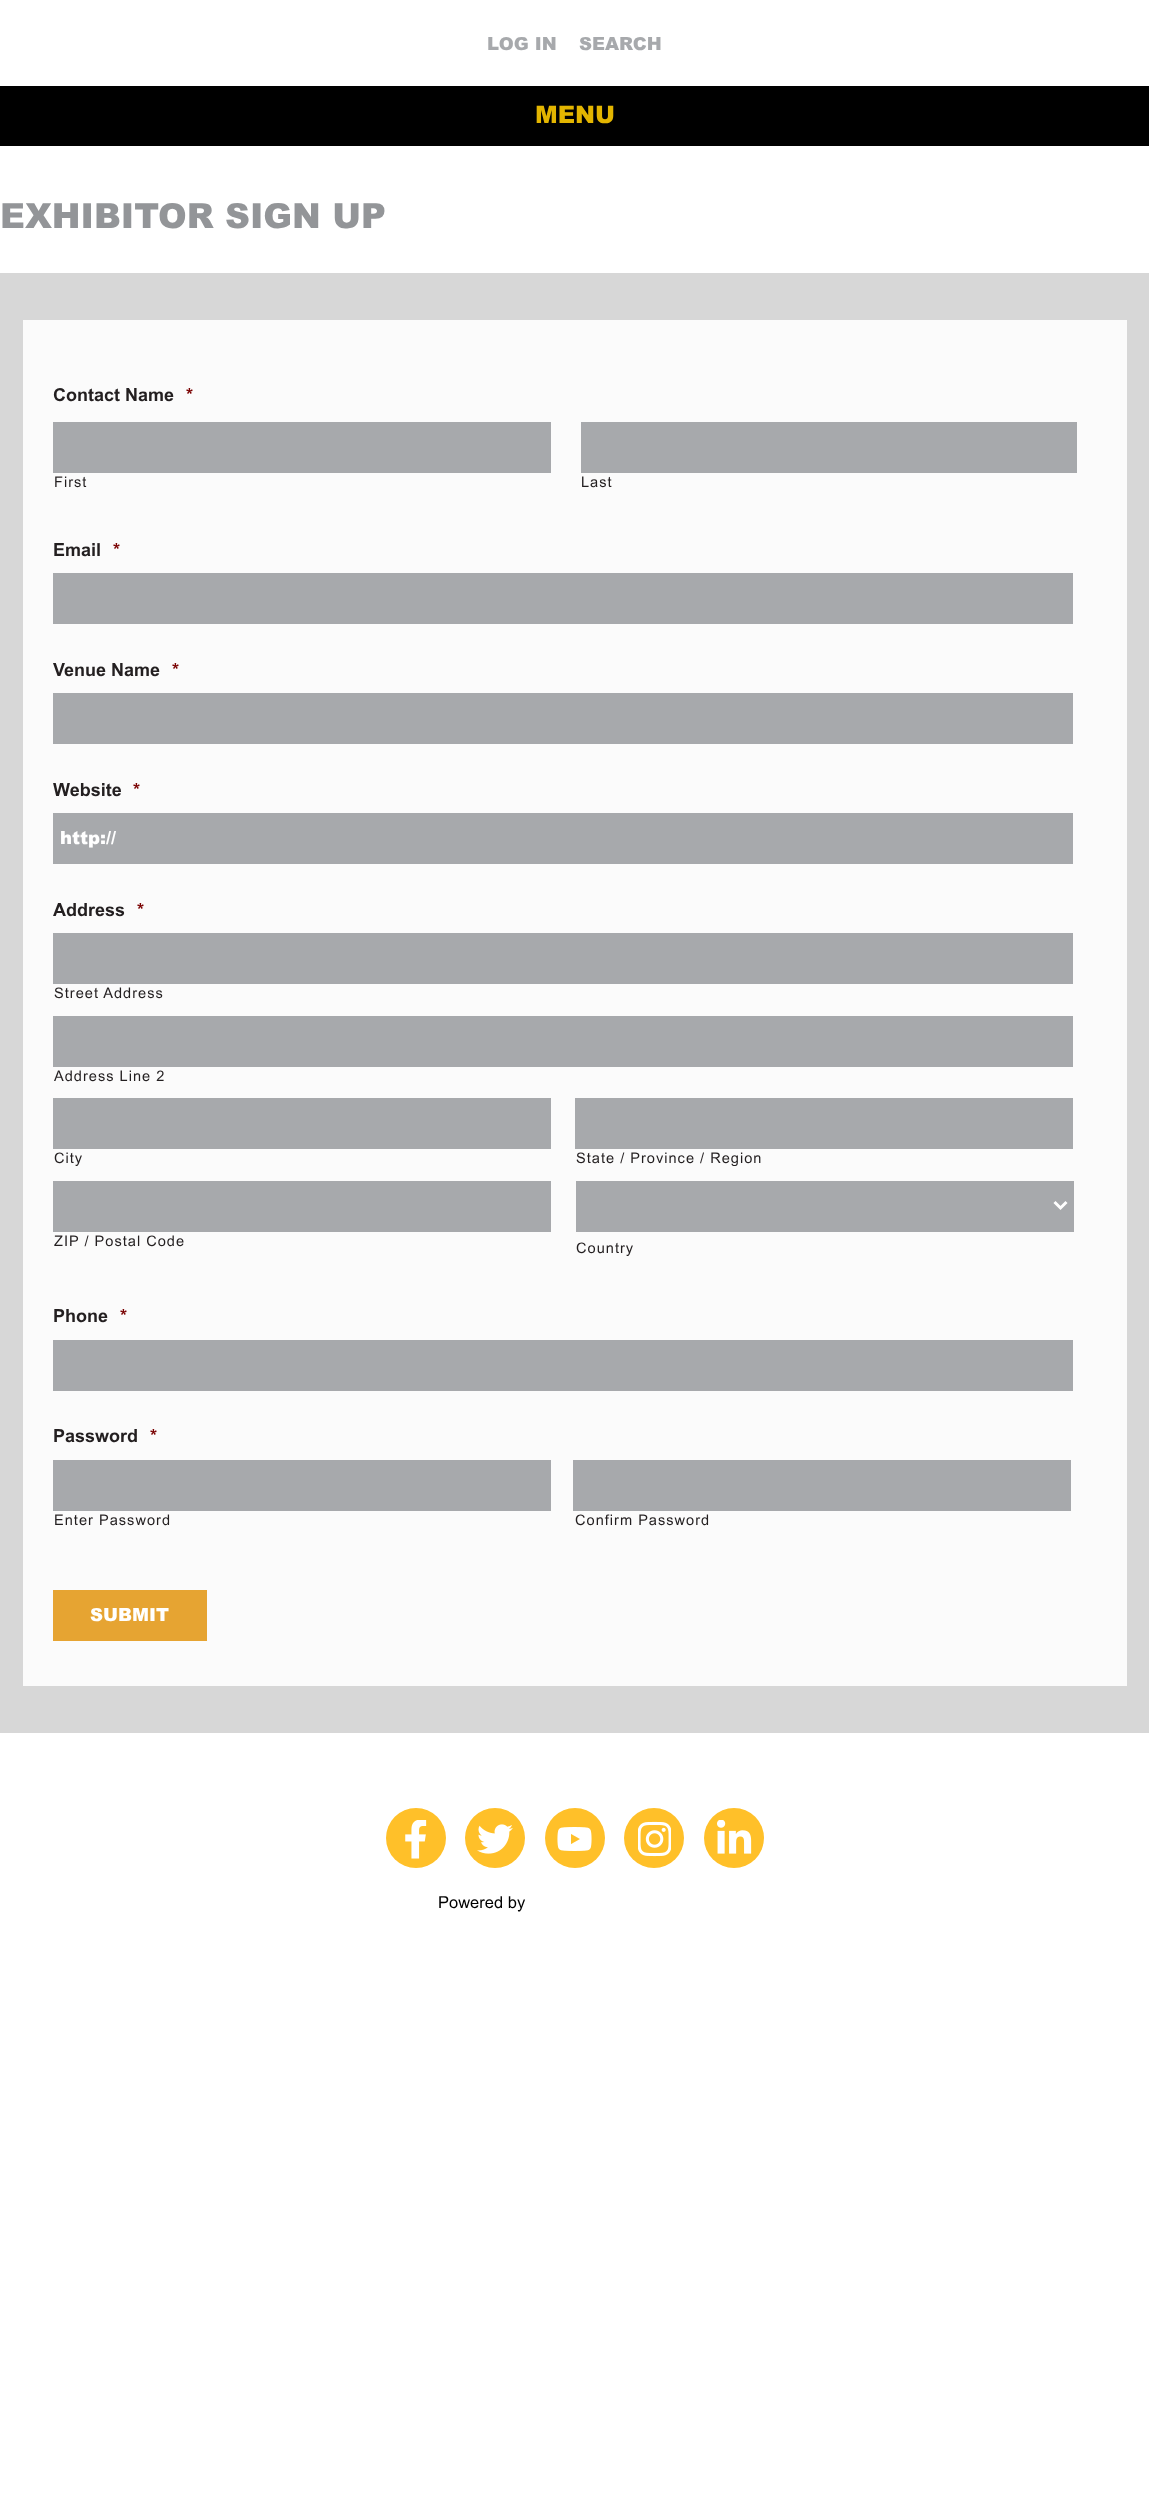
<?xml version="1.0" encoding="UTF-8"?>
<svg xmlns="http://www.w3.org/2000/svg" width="1149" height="2509">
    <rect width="100%" height="100%" fill="#FFFFFF"/>
    <text x="487" y="50" font-family="Arial" font-size="18" font-weight="900" fill="#A7A9AC">LOG IN</text>
    <text x="579" y="50" font-family="Arial" font-size="18" font-weight="900" fill="#A7A9AC">SEARCH</text>
    <rect x="0" y="86" width="1149" height="60" fill="#000000"/>
    <text x="535" y="123" font-family="Arial" font-size="24" font-weight="900" fill="#E3B500">MENU</text>
    <text x="0" y="228" font-family="Arial" font-size="34.5" font-weight="900" fill="#939598">EXHIBITOR SIGN UP</text>
    <rect x="0" y="273" width="1149" height="1460" fill="#D7D7D7"/>
    <rect x="23" y="320" width="1104" height="1366" fill="#FBFBFB"/>
    <text x="53" y="401" font-family="Arial" font-size="18" font-weight="700" fill="#231F20">Contact Name</text>
    <text x="186" y="401" font-family="Arial" font-size="18" font-weight="700" fill="#790000">*</text>
    <rect x="53" y="422" width="498" height="51" fill="#A7A9AC"/>
    <text x="54" y="487" font-family="Arial" font-size="14.6" letter-spacing="1" fill="#231F20">First</text>
    <rect x="581" y="422" width="496" height="51" fill="#A7A9AC"/>
    <text x="581" y="487" font-family="Arial" font-size="14.6" letter-spacing="1" fill="#231F20">Last</text>
    <text x="53" y="556" font-family="Arial" font-size="18" font-weight="700" fill="#231F20">Email</text>
    <text x="113" y="556" font-family="Arial" font-size="18" font-weight="700" fill="#790000">*</text>
    <rect x="53" y="573" width="1020" height="51" fill="#A7A9AC"/>
    <text x="53" y="676" font-family="Arial" font-size="18" font-weight="700" fill="#231F20">Venue Name</text>
    <text x="172" y="676" font-family="Arial" font-size="18" font-weight="700" fill="#790000">*</text>
    <rect x="53" y="693" width="1020" height="51" fill="#A7A9AC"/>
    <text x="53" y="796" font-family="Arial" font-size="18" font-weight="700" fill="#231F20">Website</text>
    <text x="133" y="796" font-family="Arial" font-size="18" font-weight="700" fill="#790000">*</text>
    <rect x="53" y="813" width="1020" height="51" fill="#A7A9AC"/>
    <text x="60" y="844" font-family="Arial" font-size="18" font-weight="900" fill="#FFFFFF">http://</text>
    <text x="53" y="916" font-family="Arial" font-size="18" font-weight="700" fill="#231F20">Address</text>
    <text x="137" y="916" font-family="Arial" font-size="18" font-weight="700" fill="#790000">*</text>
    <rect x="53" y="933" width="1020" height="51" fill="#A7A9AC"/>
    <text x="54" y="998" font-family="Arial" font-size="14.6" letter-spacing="1" fill="#231F20">Street Address</text>
    <rect x="53" y="1016" width="1020" height="51" fill="#A7A9AC"/>
    <text x="54" y="1081" font-family="Arial" font-size="14.6" letter-spacing="1" fill="#231F20">Address Line 2</text>
    <rect x="53" y="1098" width="498" height="51" fill="#A7A9AC"/>
    <text x="54" y="1163" font-family="Arial" font-size="14.6" letter-spacing="1" fill="#231F20">City</text>
    <rect x="575" y="1098" width="498" height="51" fill="#A7A9AC"/>
    <text x="576" y="1163" font-family="Arial" font-size="14.6" letter-spacing="1" fill="#231F20">State / Province / Region</text>
    <rect x="53" y="1181" width="498" height="51" fill="#A7A9AC"/>
    <text x="54" y="1246" font-family="Arial" font-size="14.6" letter-spacing="1" fill="#231F20">ZIP / Postal Code</text>
    <rect x="576" y="1181" width="498" height="51" fill="#A7A9AC"/>
    <path d="M 1054.5 1202 L 1060.5 1208 L 1066.5 1202" fill="none" stroke="#FFFFFF" stroke-width="3"/>
    <text x="576" y="1253" font-family="Arial" font-size="14.6" letter-spacing="1" fill="#231F20">Country</text>
    <text x="53" y="1322" font-family="Arial" font-size="18" font-weight="700" fill="#231F20">Phone</text>
    <text x="120" y="1322" font-family="Arial" font-size="18" font-weight="700" fill="#790000">*</text>
    <rect x="53" y="1340" width="1020" height="51" fill="#A7A9AC"/>
    <text x="53" y="1442" font-family="Arial" font-size="18" font-weight="700" fill="#231F20">Password</text>
    <text x="150" y="1442" font-family="Arial" font-size="18" font-weight="700" fill="#790000">*</text>
    <rect x="53" y="1460" width="498" height="51" fill="#A7A9AC"/>
    <text x="54" y="1525" font-family="Arial" font-size="14.6" letter-spacing="1" fill="#231F20">Enter Password</text>
    <rect x="573" y="1460" width="498" height="51" fill="#A7A9AC"/>
    <text x="575" y="1525" font-family="Arial" font-size="14.6" letter-spacing="1" fill="#231F20">Confirm Password</text>
    <rect x="53" y="1590" width="154" height="51" fill="#E6A432"/>
    <text x="90" y="1621" font-family="Arial" font-size="18" font-weight="900" fill="#FFFFFF">SUBMIT</text>
    <circle cx="416" cy="1838" r="30" fill="#FFC029"/>
    <image x="405" y="1820" width="22" height="39" href="img_01.png"/>
    <circle cx="495" cy="1838" r="30" fill="#FFC029"/>
    <image x="477" y="1824" width="36" height="30" href="img_02.png"/>
    <circle cx="575" cy="1838" r="30" fill="#FFC029"/>
    <image x="557" y="1827" width="35" height="24" href="img_03.png"/>
    <circle cx="654" cy="1838" r="30" fill="#FFC029"/>
    <image x="638" y="1821" width="33" height="36" href="img_04.png"/>
    <circle cx="734" cy="1838" r="30" fill="#FFC029"/>
    <image x="717" y="1820" width="35" height="34" href="img_05.png"/>
    <text x="438" y="1908" font-family="Arial" font-size="16.5" fill="#000000">Powered by</text>
</svg>
